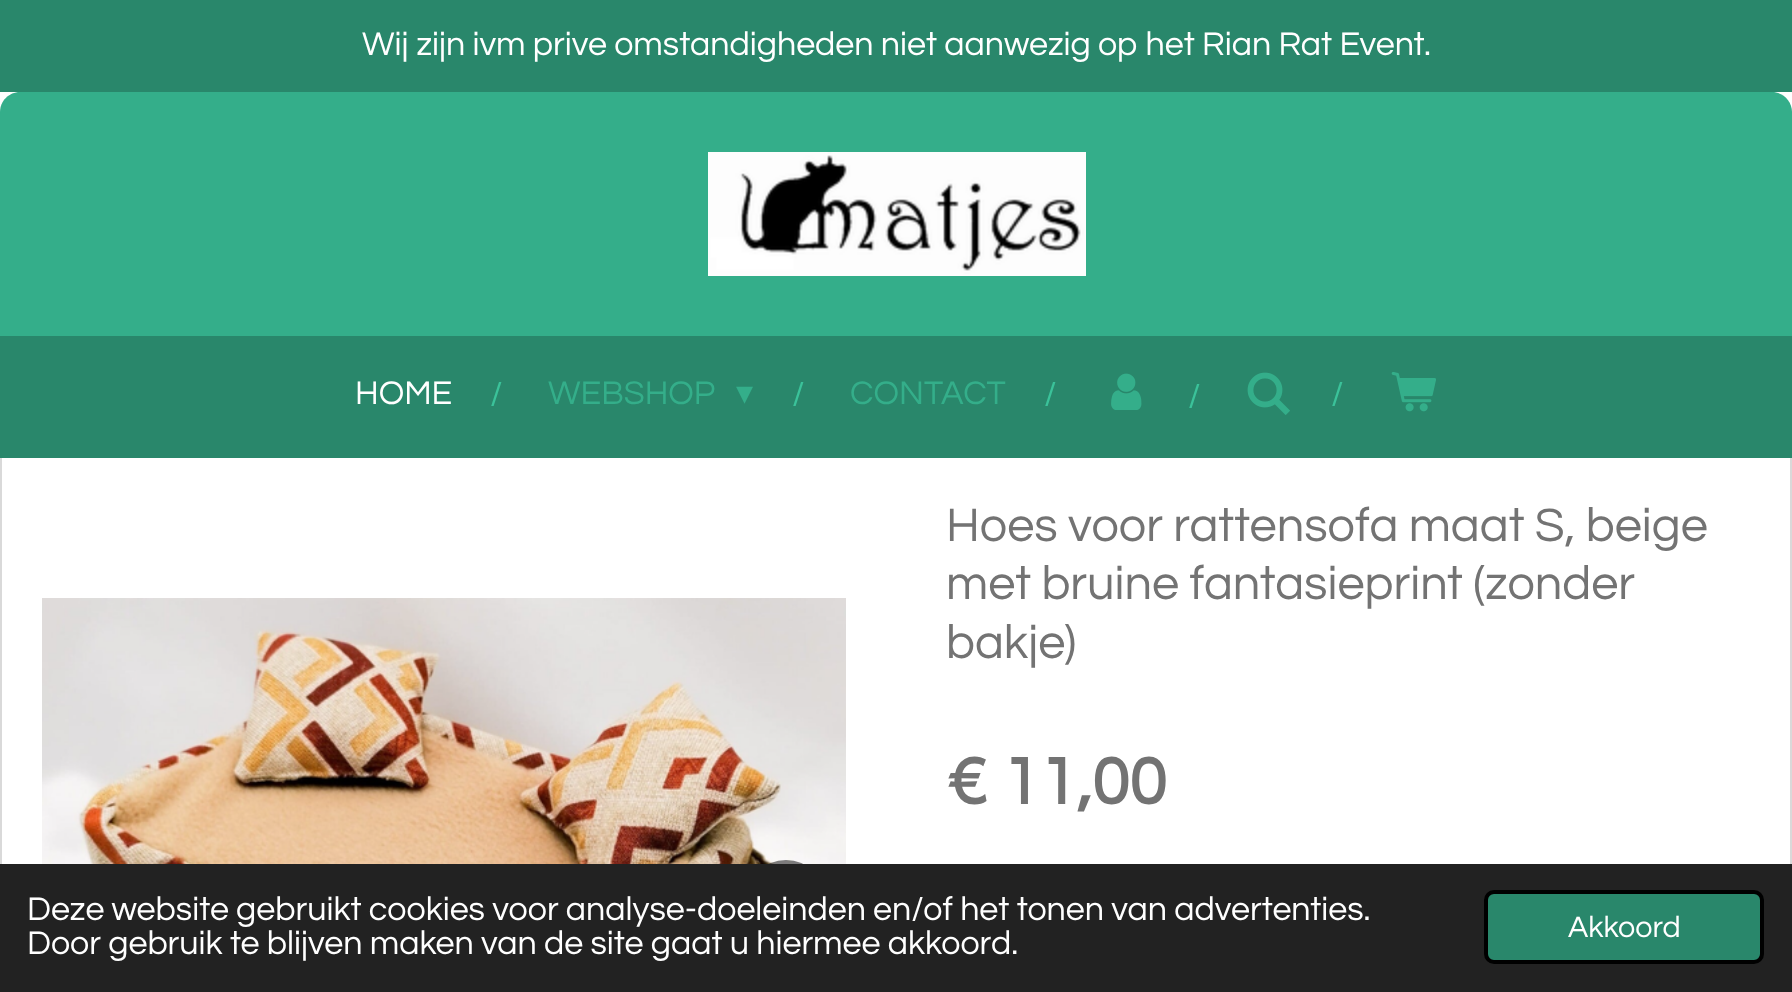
<?xml version="1.0" encoding="UTF-8"?>
<svg xmlns="http://www.w3.org/2000/svg" width="1792" height="992">
    <rect width="100%" height="100%" fill="#FFFFFF"/>
    <rect x="0" y="0" width="1792" height="92" fill="#29876B"/>
    <text x="362" y="55" font-family="Questrial" font-size="34" fill="#FFFFFF">Wij zijn ivm prive omstandigheden niet aanwezig op het Rian Rat Event.</text>
    <path d="M 20 92 H 1772 C 1783 92 1792 101 1792 112 V 336 H 0 V 112 C 0 101 9 92 20 92 Z" fill="#34AE8A"/>
    <image x="708" y="152" width="378" height="124" href="img_01.png"/>
    <rect x="0" y="336" width="1792" height="122" fill="#29876B"/>
    <text x="355" y="404" font-family="Questrial" font-size="34" fill="#FFFFFF">HOME</text>
    <text x="490" y="405" font-family="Questrial" font-size="34" fill="#3BC29A">/</text>
    <text x="548" y="404" font-family="Questrial" font-size="34" fill="#34AE8A">WEBSHOP</text>
    <text x="736" y="404" font-family="DejaVu Sans" font-size="34" fill="#34AE8A">▾</text>
    <text x="792" y="405" font-family="Questrial" font-size="34" fill="#3BC29A">/</text>
    <text x="850" y="404" font-family="Questrial" font-size="34" fill="#34AE8A">CONTACT</text>
    <text x="1044" y="405" font-family="Questrial" font-size="34" fill="#3BC29A">/</text>
    <image x="1111" y="373" width="31" height="37" href="img_02.png"/>
    <text x="1188" y="407" font-family="Questrial" font-size="34" fill="#3BC29A">/</text>
    <image x="1247" y="372" width="43" height="43" href="img_03.png"/>
    <text x="1331" y="405" font-family="Questrial" font-size="34" fill="#3BC29A">/</text>
    <image x="1391" y="372" width="45" height="40" href="img_04.png"/>
    <rect x="1790" y="458" width="2" height="406" fill="#D9D9D9"/>
    <rect x="0" y="458" width="2" height="406" fill="#D9D9D9"/>
    <image x="42" y="598" width="804" height="266" href="img_05.png"/>
    <circle cx="786" cy="900" r="40" fill="#000000" fill-opacity="0.5"/>
    <text font-family="Questrial" font-size="48.6" fill="#737373">
        <tspan x="946" y="541">Hoes voor rattensofa maat S, beige</tspan>
        <tspan x="946" y="599">met bruine fantasieprint (zonder</tspan>
        <tspan x="946" y="658">bakje)</tspan>
    </text>
    <text x="946" y="804" font-family="Questrial" font-size="68" font-weight="700" fill="#737373">€ 11,00</text>
    <rect x="0" y="864" width="1792" height="128" fill="#222222"/>
    <text font-family="Questrial" font-size="34" fill="#FFFFFF">
        <tspan x="27" y="920">Deze website gebruikt cookies voor analyse-doeleinden en/of het tonen van advertenties.</tspan>
        <tspan x="27" y="954">Door gebruik te blijven maken van de site gaat u hiermee akkoord.</tspan>
    </text>
    <rect x="1486" y="892" width="276" height="70" rx="8" fill="#29876B" stroke="#000000" stroke-width="4"/>
    <text x="1568" y="937" font-family="Questrial" font-size="30.5" fill="#FFFFFF">Akkoord</text>
</svg>
